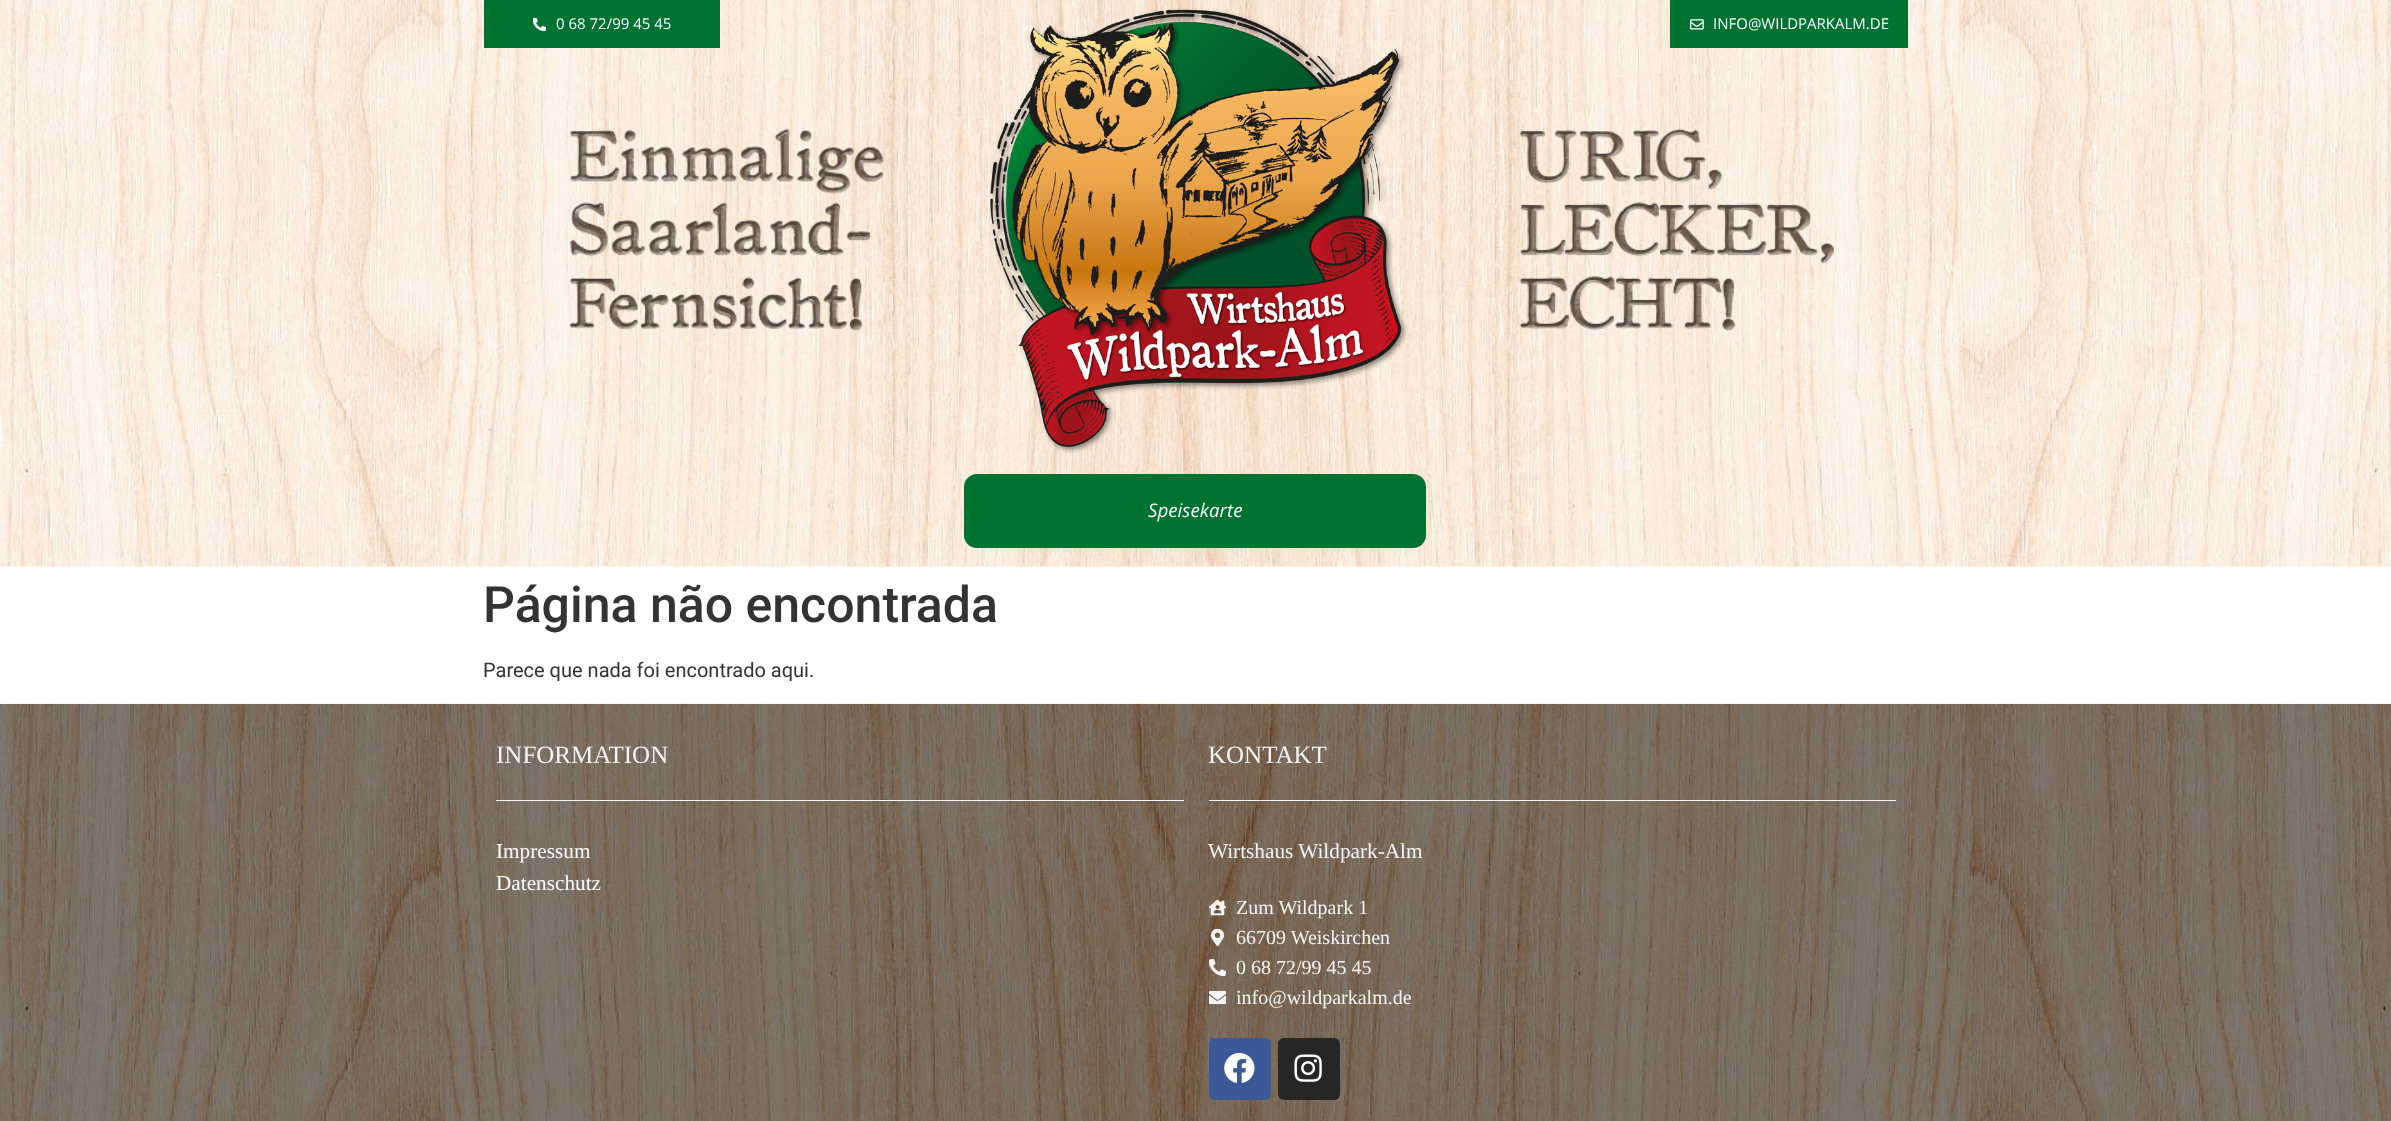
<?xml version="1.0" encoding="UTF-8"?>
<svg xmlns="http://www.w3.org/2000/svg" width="2391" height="1121">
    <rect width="100%" height="100%" fill="#FFFFFF"/>
    <image x="0" y="0" width="2391" height="567" href="img_03.png"/>
    <rect x="484" y="0" width="236" height="48" fill="#007231"/>
    <image x="533" y="18" width="13" height="13" href="img_01.png"/>
    <text x="556" y="29" font-family="Open Sans" font-size="15" fill="#FDFDFD">0 68 72/99 45 45</text>
    <rect x="1670" y="0" width="238" height="48" fill="#007231"/>
    <image x="1690" y="19" width="14" height="11" href="img_02.png"/>
    <text x="1713" y="29" font-family="Open Sans" font-size="15" fill="#FDFDFD">INFO@WILDPARKALM.DE</text>
    <image x="569" y="128" width="315" height="203" href="img_04.png"/>
    <image x="989" y="8" width="419" height="445" href="img_05.png"/>
    <image x="1519" y="128" width="315" height="203" href="img_06.png"/>
    <rect x="964" y="474" width="462" height="74" rx="13" fill="#007231"/>
    <text x="1148" y="517" font-family="Open Sans" font-size="18.75" font-style="italic" fill="#FDFDFD">Speisekarte</text>
    <text x="483" y="622" font-family="Roboto" font-size="50" font-weight="500" fill="#333333">Página não encontrada</text>
    <text x="483" y="677" font-family="Roboto" font-size="20" fill="#333333">Parece que nada foi encontrado aqui.</text>
    <image x="0" y="703" width="2391" height="418" href="img_07.png"/>
    <text x="496" y="763" font-family="Liberation Serif" font-size="25" fill="#F5F5F5">INFORMATION</text>
    <rect x="496" y="800" width="688" height="1" fill="#F5F5F5"/>
    <text font-family="Liberation Serif" font-size="21.25" fill="#FDFDFD">
        <tspan x="496" y="858">Impressum</tspan>
        <tspan x="496" y="890">Datenschutz</tspan>
    </text>
    <text x="1208" y="763" font-family="Liberation Serif" font-size="25" fill="#F5F5F5">KONTAKT</text>
    <rect x="1209" y="800" width="687" height="1" fill="#F5F5F5"/>
    <text x="1208" y="858" font-family="Liberation Serif" font-size="21.25" fill="#F5F5F5">Wirtshaus Wildpark-Alm</text>
    <image x="1209" y="899" width="17" height="17" href="img_08.png"/>
    <text x="1236" y="914" font-family="Liberation Serif" font-size="20" fill="#F5F5F5">Zum Wildpark 1</text>
    <image x="1210" y="929" width="15" height="17" href="img_09.png"/>
    <text x="1236" y="944" font-family="Liberation Serif" font-size="20" fill="#F5F5F5">66709 Weiskirchen</text>
    <image x="1209" y="959" width="17" height="17" href="img_10.png"/>
    <text x="1236" y="974" font-family="Liberation Serif" font-size="20" fill="#F5F5F5">0 68 72/99 45 45</text>
    <image x="1209" y="990" width="17" height="15" href="img_11.png"/>
    <text x="1236" y="1004" font-family="Liberation Serif" font-size="20" fill="#F5F5F5">info@wildparkalm.de</text>
    <rect x="1209" y="1038" width="62" height="62" rx="6" fill="#3B5998"/>
    <image x="1224" y="1053" width="31" height="30" href="img_12.png"/>
    <rect x="1278" y="1038" width="62" height="62" rx="6" fill="#262626"/>
    <image x="1294" y="1054" width="28" height="28" href="img_13.png"/>
</svg>
